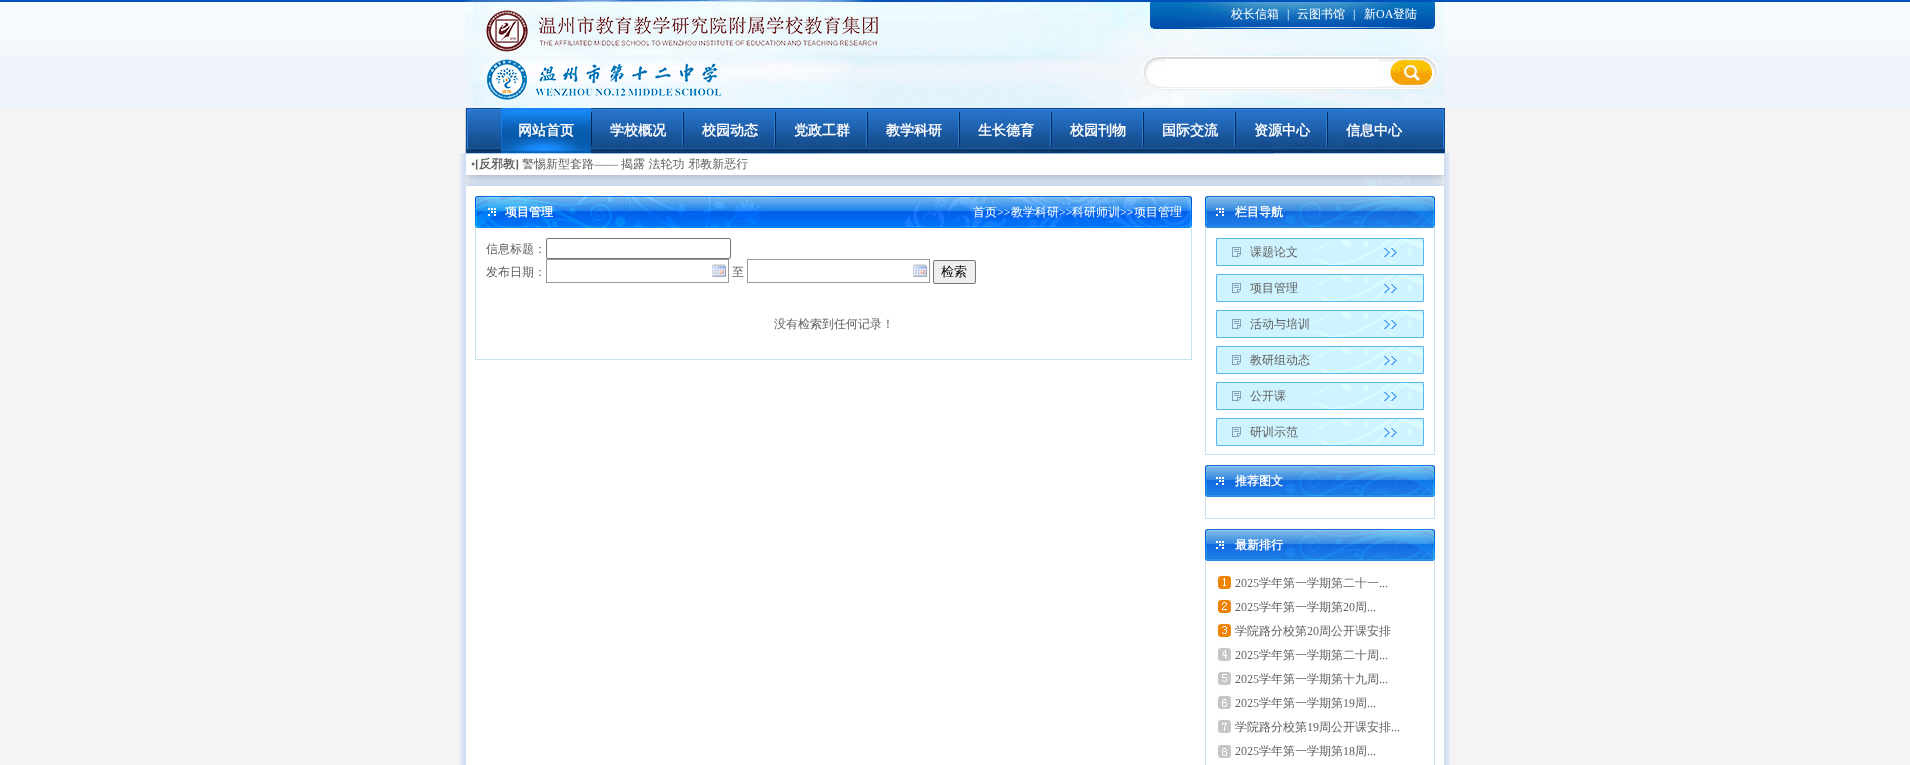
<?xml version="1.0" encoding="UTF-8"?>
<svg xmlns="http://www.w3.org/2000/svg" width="1910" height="765">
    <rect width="100%" height="100%" fill="#F5F3F4"/>
    <image x="0" y="0" width="1910" height="108" href="img_01.png"/>
    <image x="465" y="0" width="980" height="108" href="img_02.png"/>
    <text x="1231" y="18" font-family="WenQuanYi Zen Hei" font-size="12" font-weight="500" fill="#FFFFFF">校长信箱</text>
    <text x="1287" y="18" font-family="Liberation Serif" font-size="12" fill="#FFFFFF">|</text>
    <text x="1297" y="18" font-family="WenQuanYi Zen Hei" font-size="12" font-weight="500" fill="#FFFFFF">云图书馆</text>
    <text x="1353" y="18" font-family="Liberation Serif" font-size="12" fill="#FFFFFF">|</text>
    <text x="1364" y="18" font-family="WenQuanYi Zen Hei" font-size="12" font-weight="500" fill="#FFFFFF">新</text>
    <text x="1376" y="18" font-family="Liberation Serif" font-size="12" fill="#FFFFFF">OA</text>
    <text x="1393" y="18" font-family="WenQuanYi Zen Hei" font-size="12" font-weight="500" fill="#FFFFFF">登陆</text>
    <rect x="1165" y="59" width="214" height="28" fill="#FFFFFF"/>
    <image x="460" y="153" width="990" height="612" href="img_07.png"/>
    <image x="465" y="108" width="980" height="46" href="img_03.png"/>
    <image x="501" y="108" width="90" height="46" href="img_04.png"/>
    <text x="518" y="135" font-family="WenQuanYi Zen Hei" font-size="14" font-weight="700" fill="#FFFFFF">网站首页</text>
    <image x="591" y="112" width="1" height="34" href="img_05.png"/>
    <text x="610" y="135" font-family="WenQuanYi Zen Hei" font-size="14" font-weight="700" fill="#FFFFFF">学校概况</text>
    <image x="682" y="112" width="2" height="34" href="img_06.png"/>
    <text x="702" y="135" font-family="WenQuanYi Zen Hei" font-size="14" font-weight="700" fill="#FFFFFF">校园动态</text>
    <image x="774" y="112" width="2" height="34" href="img_06.png"/>
    <text x="794" y="135" font-family="WenQuanYi Zen Hei" font-size="14" font-weight="700" fill="#FFFFFF">党政工群</text>
    <image x="866" y="112" width="2" height="34" href="img_06.png"/>
    <text x="886" y="135" font-family="WenQuanYi Zen Hei" font-size="14" font-weight="700" fill="#FFFFFF">教学科研</text>
    <image x="958" y="112" width="2" height="34" href="img_06.png"/>
    <text x="978" y="135" font-family="WenQuanYi Zen Hei" font-size="14" font-weight="700" fill="#FFFFFF">生长德育</text>
    <image x="1050" y="112" width="2" height="34" href="img_06.png"/>
    <text x="1070" y="135" font-family="WenQuanYi Zen Hei" font-size="14" font-weight="700" fill="#FFFFFF">校园刊物</text>
    <image x="1142" y="112" width="2" height="34" href="img_06.png"/>
    <text x="1162" y="135" font-family="WenQuanYi Zen Hei" font-size="14" font-weight="700" fill="#FFFFFF">国际交流</text>
    <image x="1234" y="112" width="2" height="34" href="img_06.png"/>
    <text x="1254" y="135" font-family="WenQuanYi Zen Hei" font-size="14" font-weight="700" fill="#FFFFFF">资源中心</text>
    <image x="1326" y="112" width="2" height="34" href="img_06.png"/>
    <text x="1346" y="135" font-family="WenQuanYi Zen Hei" font-size="14" font-weight="700" fill="#FFFFFF">信息中心</text>
    <text x="471" y="168" font-family="Liberation Serif" font-size="12" fill="#5F5F5F">•</text>
    <text x="475" y="168" font-family="Liberation Serif" font-size="12" font-weight="700" fill="#5F5F5F">[</text>
    <text x="479" y="168" font-family="WenQuanYi Zen Hei" font-size="12" font-weight="700" fill="#5F5F5F">反邪教</text>
    <text x="515" y="168" font-family="Liberation Serif" font-size="12" font-weight="700" fill="#5F5F5F">]</text>
    <text x="522" y="168" font-family="WenQuanYi Zen Hei" font-size="12" font-weight="500" fill="#5F5F5F">警惕新型套路</text>
    <text x="594" y="168" font-family="Liberation Serif" font-size="12" fill="#5F5F5F">——</text>
    <text x="621" y="168" font-family="WenQuanYi Zen Hei" font-size="12" font-weight="500" fill="#5F5F5F">揭露 法轮功 邪教新恶行</text>
    <image x="465" y="175" width="980" height="11" href="img_08.png"/>
    <image x="475" y="196" width="717" height="32" href="img_09.png"/>
    <text x="505" y="216" font-family="WenQuanYi Zen Hei" font-size="12" font-weight="700" fill="#FFFFFF">项目管理</text>
    <text x="973" y="216" font-family="WenQuanYi Zen Hei" font-size="12" font-weight="500" fill="#FFFFFF">首页</text>
    <text x="997" y="216" font-family="Liberation Serif" font-size="12" fill="#FFFFFF">&gt;&gt;</text>
    <text x="1011" y="216" font-family="WenQuanYi Zen Hei" font-size="12" font-weight="500" fill="#FFFFFF">教学科研</text>
    <text x="1059" y="216" font-family="Liberation Serif" font-size="12" fill="#FFFFFF">&gt;&gt;</text>
    <text x="1072" y="216" font-family="WenQuanYi Zen Hei" font-size="12" font-weight="500" fill="#FFFFFF">科研师训</text>
    <text x="1120" y="216" font-family="Liberation Serif" font-size="12" fill="#FFFFFF">&gt;&gt;</text>
    <text x="1134" y="216" font-family="WenQuanYi Zen Hei" font-size="12" font-weight="500" fill="#FFFFFF">项目管理</text>
    <rect x="1191" y="228" width="1" height="132" fill="#C4E4EE"/>
    <rect x="475" y="359" width="717" height="1" fill="#C4E4EE"/>
    <rect x="475" y="228" width="1" height="132" fill="#C4E4EE"/>
    <text x="486" y="253" font-family="WenQuanYi Zen Hei" font-size="12" font-weight="500" fill="#5F5F5F">信息标题：</text>
    <rect x="546.5" y="238.5" width="184" height="20" rx="1.5" fill="none" stroke="#767676"/>
    <text x="486" y="276" font-family="WenQuanYi Zen Hei" font-size="12" font-weight="500" fill="#5F5F5F">发布日期：</text>
    <image x="712" y="264" width="14" height="13" href="img_10.png"/>
    <rect x="546.5" y="259.5" width="182" height="23" fill="none" stroke="#999999"/>
    <text x="732" y="276" font-family="WenQuanYi Zen Hei" font-size="12" font-weight="500" fill="#5F5F5F">至</text>
    <image x="913" y="264" width="14" height="13" href="img_10.png"/>
    <rect x="747.5" y="259.5" width="182" height="23" fill="none" stroke="#999999"/>
    <rect x="933.5" y="260.5" width="42" height="23" rx="1.5" fill="#EFEFEF" stroke="#767676"/>
    <text x="941" y="276" font-family="WenQuanYi Zen Hei" font-size="13" font-weight="500" fill="#000000">检索</text>
    <text x="774" y="328" font-family="WenQuanYi Zen Hei" font-size="12" font-weight="500" fill="#5F5F5F">没有检索到任何记录！</text>
    <image x="1205" y="196" width="230" height="32" href="img_11.png"/>
    <text x="1235" y="216" font-family="WenQuanYi Zen Hei" font-size="12" font-weight="700" fill="#FFFFFF">栏目导航</text>
    <rect x="1434" y="228" width="1" height="227" fill="#C4E4EE"/>
    <rect x="1205" y="454" width="230" height="1" fill="#C4E4EE"/>
    <rect x="1205" y="228" width="1" height="227" fill="#C4E4EE"/>
    <image x="1216" y="238" width="208" height="28" href="img_12.png"/>
    <text x="1250" y="256" font-family="WenQuanYi Zen Hei" font-size="12" font-weight="500" fill="#5F5F5F">课题论文</text>
    <image x="1216" y="274" width="208" height="28" href="img_12.png"/>
    <text x="1250" y="292" font-family="WenQuanYi Zen Hei" font-size="12" font-weight="500" fill="#5F5F5F">项目管理</text>
    <image x="1216" y="310" width="208" height="28" href="img_12.png"/>
    <text x="1250" y="328" font-family="WenQuanYi Zen Hei" font-size="12" font-weight="500" fill="#5F5F5F">活动与培训</text>
    <image x="1216" y="346" width="208" height="28" href="img_12.png"/>
    <text x="1250" y="364" font-family="WenQuanYi Zen Hei" font-size="12" font-weight="500" fill="#5F5F5F">教研组动态</text>
    <image x="1216" y="382" width="208" height="28" href="img_12.png"/>
    <text x="1250" y="400" font-family="WenQuanYi Zen Hei" font-size="12" font-weight="500" fill="#5F5F5F">公开课</text>
    <image x="1216" y="418" width="208" height="28" href="img_12.png"/>
    <text x="1250" y="436" font-family="WenQuanYi Zen Hei" font-size="12" font-weight="500" fill="#5F5F5F">研训示范</text>
    <image x="1205" y="465" width="230" height="32" href="img_11.png"/>
    <text x="1235" y="485" font-family="WenQuanYi Zen Hei" font-size="12" font-weight="700" fill="#FFFFFF">推荐图文</text>
    <rect x="1434" y="497" width="1" height="22" fill="#C4E4EE"/>
    <rect x="1205" y="518" width="230" height="1" fill="#C4E4EE"/>
    <rect x="1205" y="497" width="1" height="22" fill="#C4E4EE"/>
    <image x="1205" y="529" width="230" height="32" href="img_11.png"/>
    <text x="1235" y="549" font-family="WenQuanYi Zen Hei" font-size="12" font-weight="700" fill="#FFFFFF">最新排行</text>
    <rect x="1434" y="561" width="1" height="204" fill="#C4E4EE"/>
    <rect x="1205" y="561" width="1" height="204" fill="#C4E4EE"/>
    <image x="1216" y="576" width="16" height="182" href="img_13.png"/>
    <text x="1235" y="587" font-family="Liberation Serif" font-size="12" fill="#5F5F5F">2025</text>
    <text x="1259" y="587" font-family="WenQuanYi Zen Hei" font-size="12" font-weight="500" fill="#5F5F5F">学年第一学期第二十一</text>
    <text x="1379" y="587" font-family="Liberation Serif" font-size="12" fill="#5F5F5F">...</text>
    <text x="1235" y="611" font-family="Liberation Serif" font-size="12" fill="#5F5F5F">2025</text>
    <text x="1259" y="611" font-family="WenQuanYi Zen Hei" font-size="12" font-weight="500" fill="#5F5F5F">学年第一学期第</text>
    <text x="1343" y="611" font-family="Liberation Serif" font-size="12" fill="#5F5F5F">20</text>
    <text x="1355" y="611" font-family="WenQuanYi Zen Hei" font-size="12" font-weight="500" fill="#5F5F5F">周</text>
    <text x="1367" y="611" font-family="Liberation Serif" font-size="12" fill="#5F5F5F">...</text>
    <text x="1235" y="635" font-family="WenQuanYi Zen Hei" font-size="12" font-weight="500" fill="#5F5F5F">学院路分校第</text>
    <text x="1307" y="635" font-family="Liberation Serif" font-size="12" fill="#5F5F5F">20</text>
    <text x="1319" y="635" font-family="WenQuanYi Zen Hei" font-size="12" font-weight="500" fill="#5F5F5F">周公开课安排</text>
    <text x="1235" y="659" font-family="Liberation Serif" font-size="12" fill="#5F5F5F">2025</text>
    <text x="1259" y="659" font-family="WenQuanYi Zen Hei" font-size="12" font-weight="500" fill="#5F5F5F">学年第一学期第二十周</text>
    <text x="1379" y="659" font-family="Liberation Serif" font-size="12" fill="#5F5F5F">...</text>
    <text x="1235" y="683" font-family="Liberation Serif" font-size="12" fill="#5F5F5F">2025</text>
    <text x="1259" y="683" font-family="WenQuanYi Zen Hei" font-size="12" font-weight="500" fill="#5F5F5F">学年第一学期第十九周</text>
    <text x="1379" y="683" font-family="Liberation Serif" font-size="12" fill="#5F5F5F">...</text>
    <text x="1235" y="707" font-family="Liberation Serif" font-size="12" fill="#5F5F5F">2025</text>
    <text x="1259" y="707" font-family="WenQuanYi Zen Hei" font-size="12" font-weight="500" fill="#5F5F5F">学年第一学期第</text>
    <text x="1343" y="707" font-family="Liberation Serif" font-size="12" fill="#5F5F5F">19</text>
    <text x="1355" y="707" font-family="WenQuanYi Zen Hei" font-size="12" font-weight="500" fill="#5F5F5F">周</text>
    <text x="1367" y="707" font-family="Liberation Serif" font-size="12" fill="#5F5F5F">...</text>
    <text x="1235" y="731" font-family="WenQuanYi Zen Hei" font-size="12" font-weight="500" fill="#5F5F5F">学院路分校第</text>
    <text x="1307" y="731" font-family="Liberation Serif" font-size="12" fill="#5F5F5F">19</text>
    <text x="1319" y="731" font-family="WenQuanYi Zen Hei" font-size="12" font-weight="500" fill="#5F5F5F">周公开课安排</text>
    <text x="1391" y="731" font-family="Liberation Serif" font-size="12" fill="#5F5F5F">...</text>
    <text x="1235" y="755" font-family="Liberation Serif" font-size="12" fill="#5F5F5F">2025</text>
    <text x="1259" y="755" font-family="WenQuanYi Zen Hei" font-size="12" font-weight="500" fill="#5F5F5F">学年第一学期第</text>
    <text x="1343" y="755" font-family="Liberation Serif" font-size="12" fill="#5F5F5F">18</text>
    <text x="1355" y="755" font-family="WenQuanYi Zen Hei" font-size="12" font-weight="500" fill="#5F5F5F">周</text>
    <text x="1367" y="755" font-family="Liberation Serif" font-size="12" fill="#5F5F5F">...</text>
</svg>
